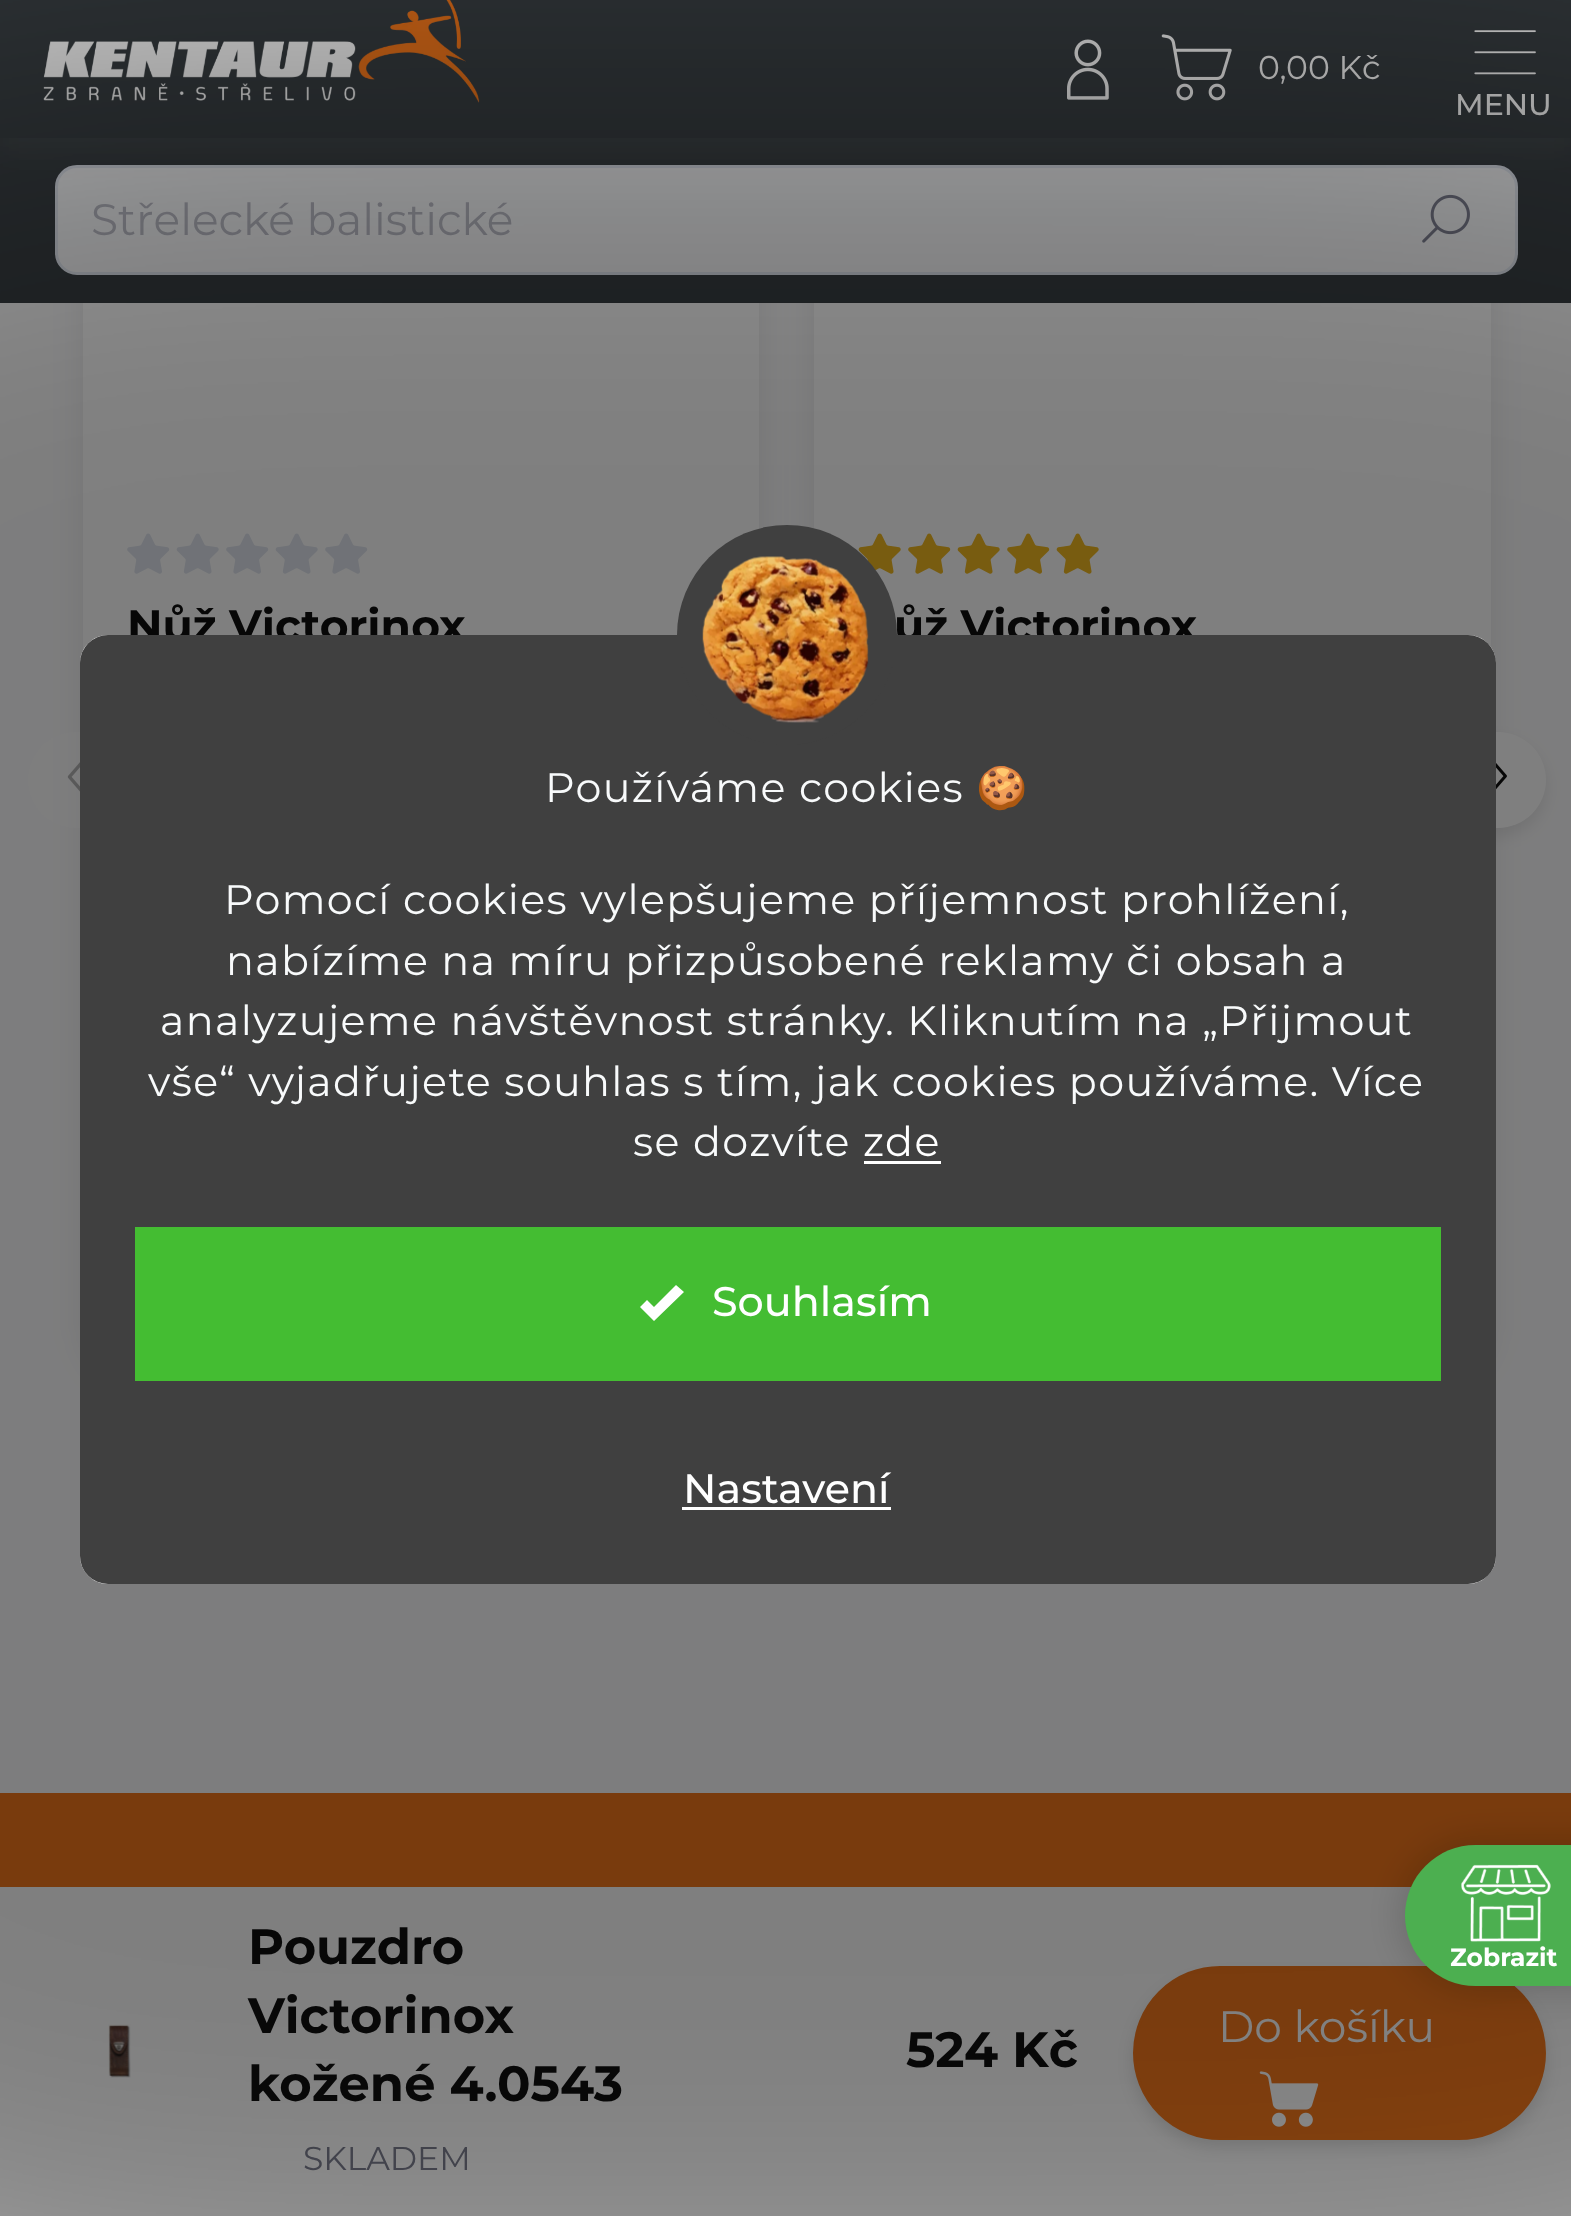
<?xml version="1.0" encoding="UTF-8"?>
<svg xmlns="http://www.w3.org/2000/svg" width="1571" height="2216">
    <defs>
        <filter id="blur1" x="-50%" y="-200%" width="200%" height="500%"><feGaussianBlur stdDeviation="16.5"/></filter>
        <filter id="blur2" x="-50%" y="-200%" width="200%" height="500%"><feGaussianBlur stdDeviation="14"/></filter>
        <filter id="blur3" x="-50%" y="-200%" width="200%" height="500%"><feGaussianBlur stdDeviation="8"/></filter>
        <clipPath id="clip1"><path d="M 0 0 H 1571 V 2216 H 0 Z M 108 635 H 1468 C 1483.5 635 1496 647.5 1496 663 V 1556 C 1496 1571.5 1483.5 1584 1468 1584 H 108 C 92.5 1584 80 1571.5 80 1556 V 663 C 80 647.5 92.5 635 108 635 Z" clip-rule="evenodd"/></clipPath>
        <filter id="blur4" x="-50%" y="-200%" width="200%" height="500%"><feGaussianBlur stdDeviation="220"/></filter>
        <filter id="blur5" x="-50%" y="-200%" width="200%" height="500%"><feGaussianBlur stdDeviation="20.5"/></filter>
    </defs>
    <rect width="100%" height="100%" fill="#FBFBFC"/>
    <rect x="83" y="25" width="676" height="1358" rx="55" fill="#000000" fill-opacity="0.08" filter="url(#blur1)"/>
    <rect x="814" y="25" width="677" height="1358" rx="55" fill="#000000" fill-opacity="0.08" filter="url(#blur1)"/>
    <rect x="0" y="138" width="1571" height="165" fill="#383E42"/>
    <rect x="56.5" y="166.5" width="1460" height="107" rx="20.5" fill="#F5F6F8" stroke="#E0E5EE" stroke-width="3"/>
    <rect x="0" y="14" width="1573" height="137" fill="#7D7D7D" fill-opacity="0.1" filter="url(#blur2)"/>
    <rect x="0" y="0" width="1571" height="138" fill="#383E42"/>
    <image x="43" y="0" width="437" height="103" href="img_01.png"/>
    <image x="1067" y="39" width="42" height="61" href="img_02.png"/>
    <image x="1161" y="34" width="71" height="67" href="img_03.png"/>
    <text x="1258" y="79" font-family="Montserrat" font-size="33" fill="#FFFFFF">0,00 Kč</text>
    <image x="1474" y="30" width="62" height="45" href="img_04.png"/>
    <text x="1455" y="115" font-family="Montserrat" font-size="30" font-weight="500" fill="#FFFFFF">MENU</text>
    <text x="91" y="235" font-family="Montserrat" font-size="44" fill="#B9BAC4">Střelecké balistické</text>
    <image x="1422" y="194" width="48" height="49" href="img_05.png"/>
    <rect x="83" y="303" width="676" height="348" fill="#FFFFFF"/>
    <image x="127" y="533" width="43" height="41" href="img_06.png"/>
    <image x="176" y="533" width="43" height="41" href="img_07.png"/>
    <image x="226" y="533" width="43" height="41" href="img_06.png"/>
    <image x="275" y="533" width="43" height="41" href="img_07.png"/>
    <image x="325" y="533" width="43" height="41" href="img_06.png"/>
    <text x="127" y="641" font-family="Montserrat" font-size="44" font-weight="700" fill="#0F0F0F">Nůž Victorinox</text>
    <rect x="814" y="303" width="677" height="344" fill="#FFFFFF"/>
    <image x="858" y="533" width="43" height="41" href="img_08.png"/>
    <image x="908" y="533" width="43" height="41" href="img_09.png"/>
    <image x="957" y="533" width="43" height="41" href="img_08.png"/>
    <image x="1007" y="533" width="43" height="41" href="img_09.png"/>
    <image x="1056" y="533" width="43" height="41" href="img_08.png"/>
    <text x="894" y="641" font-family="Montserrat" font-size="44" font-weight="700" fill="#0F0F0F">ůž Victorinox</text>
    <circle cx="76" cy="780" r="48" fill="#FFFFFF" fill-opacity="0.3"/>
    <image x="67" y="762" width="13" height="30" href="img_10.png"/>
    <rect x="1449" y="740" width="97" height="96" rx="48" fill="#000000" fill-opacity="0.09" filter="url(#blur3)"/>
    <rect x="1449" y="732" width="97" height="96" rx="48" fill="#FFFFFF"/>
    <image x="1496" y="763" width="11" height="27" href="img_11.png"/>
    <rect x="0" y="1793" width="1571" height="94" fill="#F3771B"/>
    <rect x="0" y="1887" width="1571" height="329" fill="#FFFFFF"/>
    <image x="108" y="2024" width="23" height="54" href="img_12.png"/>
    <text font-family="Montserrat" font-size="49.5" font-weight="700" fill="#0F0F0F">
        <tspan x="248" y="1964">Pouzdro</tspan>
        <tspan x="248" y="2033">Victorinox</tspan>
        <tspan x="248" y="2101">kožené 4.0543</tspan>
    </text>
    <text x="303" y="2170" font-family="Montserrat" font-size="33" fill="#7C7E8F">SKLADEM</text>
    <text x="906" y="2067" font-family="Montserrat" font-size="49.5" font-weight="700" fill="#0F0F0F">524 Kč</text>
    <rect x="1133" y="1975" width="413" height="173" rx="86.5" fill="#000000" fill-opacity="0.12" filter="url(#blur3)"/>
    <rect x="1134.5" y="1967.5" width="410" height="171" rx="85.5" fill="#F3771B" stroke="#F3771B" stroke-width="3"/>
    <text x="1218" y="2042" font-family="Montserrat" font-size="44" fill="#FFFFFF">Do košíku</text>
    <image x="1259" y="2071" width="60" height="56" href="img_13.png"/>
    <g clip-path="url(#clip1)">
        <rect x="-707" y="-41" width="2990" height="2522" rx="814" fill="#000000" fill-opacity="0.5" filter="url(#blur4)"/>
    </g>
    <rect x="80" y="635" width="1416" height="949" rx="28" fill="#404040"/>
    <circle cx="787" cy="635" r="110" fill="#404040"/>
    <image x="702" y="556" width="167" height="167" href="img_14.png"/>
    <text x="545" y="802" font-family="Montserrat" font-size="41.25" letter-spacing="1.38" fill="#F8FAFB">Používáme cookies</text>
    <text x="976" y="802" font-family="Noto Color Emoji" font-size="41.25" letter-spacing="1.38" fill="#F8FAFB">🍪</text>
    <text x="224" y="914" font-family="Montserrat" font-size="41.25" letter-spacing="1.38" fill="#F8FAFB">Pomocí cookies vylepšujeme příjemnost prohlížení,</text>
    <text x="226" y="975" font-family="Montserrat" font-size="41.25" letter-spacing="1.38" fill="#F8FAFB">nabízíme na míru přizpůsobené reklamy či obsah a</text>
    <text x="160" y="1035" font-family="Montserrat" font-size="41.25" letter-spacing="1.38" fill="#F8FAFB">analyzujeme návštěvnost stránky. Kliknutím na „Přijmout</text>
    <text x="148" y="1096" font-family="Montserrat" font-size="41.25" letter-spacing="1.38" fill="#F8FAFB">vše“ vyjadřujete souhlas s tím, jak cookies používáme. Více</text>
    <text x="633" y="1156" font-family="Montserrat" font-size="41.25" letter-spacing="1.38" fill="#F8FAFB">se dozvíte</text>
    <text x="863" y="1156" font-family="Montserrat" font-size="41.25" letter-spacing="1.38" fill="#FFFFFF">zde</text>
    <rect x="864" y="1161" width="77" height="3" fill="#FFFFFF"/>
    <rect x="135" y="1227" width="1306" height="154" fill="#44BD32"/>
    <path d="M 676 1285 L 654 1307 L 647 1300 L 640 1307 L 654 1321 L 684 1292 Z" fill="#FFFFFF"/>
    <text x="712" y="1316" font-family="Montserrat" font-size="41.25" font-weight="500" fill="#FFFFFF">Souhlasím</text>
    <text x="683" y="1503" font-family="Montserrat" font-size="41.25" font-weight="500" fill="#FFFFFF">Nastavení</text>
    <rect x="682" y="1507" width="209" height="3" fill="#FFFFFF"/>
    <rect x="1405" y="1845" width="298" height="141" rx="70.5" fill="#000000" fill-opacity="0.2" filter="url(#blur5)"/>
    <rect x="1405" y="1845" width="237" height="141" rx="70.5" fill="#4CAF50"/>
    <image x="1461" y="1864" width="90" height="78" href="img_15.png"/>
    <text x="1450" y="1966" font-family="Montserrat" font-size="25" font-weight="700" fill="#FFFFFF">Zobrazit</text>
</svg>
